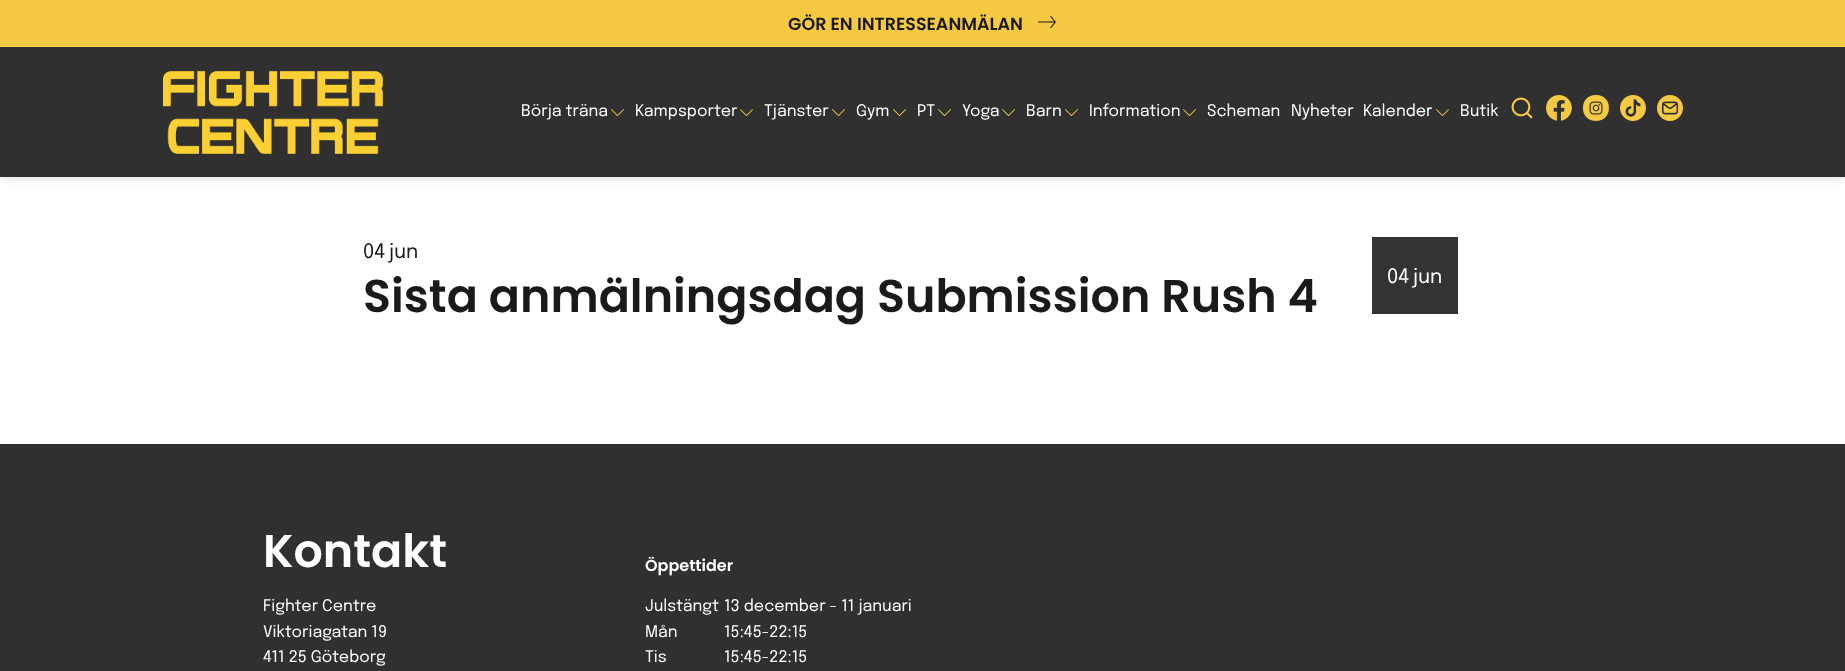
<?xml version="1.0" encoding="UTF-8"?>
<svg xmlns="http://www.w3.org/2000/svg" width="1845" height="671">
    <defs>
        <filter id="blur1" x="-50%" y="-200%" width="200%" height="500%"><feGaussianBlur stdDeviation="5"/></filter>
    </defs>
    <rect width="100%" height="100%" fill="#FFFFFF"/>
    <rect x="1" y="1" width="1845" height="177" fill="#000000" fill-opacity="0.15" filter="url(#blur1)"/>
    <rect x="0" y="47" width="1845" height="130" fill="#303030"/>
    <rect x="0" y="0" width="1845" height="47" fill="#F5C942"/>
    <text x="788" y="30" font-family="Poppins" font-size="17.5" font-weight="600" fill="#1A1A1A">GÖR EN INTRESSEANMÄLAN</text>
    <image x="1038" y="16" width="18" height="12" href="img_01.png"/>
    <image x="163" y="71" width="220" height="83" href="img_02.png"/>
    <text x="521" y="116" font-family="Epilogue" font-size="16" fill="#FFFFFF">Börja träna</text>
    <image x="611" y="109" width="13" height="8" href="img_03.png"/>
    <text x="635" y="116" font-family="Epilogue" font-size="16" fill="#FFFFFF">Kampsporter</text>
    <image x="740" y="109" width="13" height="8" href="img_03.png"/>
    <text x="764" y="116" font-family="Epilogue" font-size="16" fill="#FFFFFF">Tjänster</text>
    <image x="832" y="109" width="13" height="8" href="img_03.png"/>
    <text x="856" y="116" font-family="Epilogue" font-size="16" fill="#FFFFFF">Gym</text>
    <image x="893" y="109" width="13" height="8" href="img_03.png"/>
    <text x="917" y="116" font-family="Epilogue" font-size="16" fill="#FFFFFF">PT</text>
    <image x="938" y="109" width="13" height="8" href="img_03.png"/>
    <text x="962" y="116" font-family="Epilogue" font-size="16" fill="#FFFFFF">Yoga</text>
    <image x="1002" y="109" width="13" height="8" href="img_03.png"/>
    <text x="1026" y="116" font-family="Epilogue" font-size="16" fill="#FFFFFF">Barn</text>
    <image x="1065" y="109" width="13" height="8" href="img_03.png"/>
    <text x="1089" y="116" font-family="Epilogue" font-size="16" fill="#FFFFFF">Information</text>
    <image x="1183" y="109" width="13" height="8" href="img_03.png"/>
    <text x="1207" y="116" font-family="Epilogue" font-size="16" fill="#FFFFFF">Scheman</text>
    <text x="1291" y="116" font-family="Epilogue" font-size="16" fill="#FFFFFF">Nyheter</text>
    <text x="1363" y="116" font-family="Epilogue" font-size="16" fill="#FFFFFF">Kalender</text>
    <image x="1436" y="109" width="13" height="8" href="img_03.png"/>
    <text x="1460" y="116" font-family="Epilogue" font-size="16" fill="#FFFFFF">Butik</text>
    <image x="1511" y="97" width="22" height="22" href="img_04.png"/>
    <image x="1546" y="95" width="26" height="26" href="img_05.png"/>
    <image x="1583" y="95" width="26" height="26" href="img_06.png"/>
    <image x="1620" y="95" width="26" height="26" href="img_07.png"/>
    <image x="1657" y="95" width="26" height="26" href="img_08.png"/>
    <text x="363" y="258" font-family="Epilogue" font-size="20" fill="#1A1A1A">04</text>
    <text x="389" y="258" font-family="Epilogue" font-size="20" fill="#1A1A1A">jun</text>
    <text x="363" y="312" font-family="Poppins" font-size="46" font-weight="600" fill="#1A1A1A">Sista anmälningsdag Submission Rush 4</text>
    <rect x="1372" y="237" width="86" height="77" fill="#333333"/>
    <text x="1387" y="283" font-family="Epilogue" font-size="20" fill="#FFFFFF">04</text>
    <text x="1413" y="283" font-family="Epilogue" font-size="20" fill="#FFFFFF">jun</text>
    <rect x="0" y="444" width="1845" height="227" fill="#303030"/>
    <text x="263" y="567" font-family="Poppins" font-size="46" font-weight="600" fill="#FFFFFF">Kontakt</text>
    <text font-family="Epilogue" font-size="16" fill="#FFFFFF">
        <tspan x="263" y="611">Fighter Centre</tspan>
        <tspan x="263" y="637">Viktoriagatan 19</tspan>
        <tspan x="263" y="662">411 25 Göteborg</tspan>
    </text>
    <text x="645" y="571" font-family="Poppins" font-size="16" font-weight="600" fill="#FFFFFF">Öppettider</text>
    <text x="645" y="611" font-family="Epilogue" font-size="16" fill="#FFFFFF">Julstängt</text>
    <text x="724" y="611" font-family="Epilogue" font-size="16" fill="#FFFFFF">13 december - 11 januari</text>
    <text x="645" y="637" font-family="Epilogue" font-size="16" fill="#FFFFFF">Mån</text>
    <text x="724" y="637" font-family="Epilogue" font-size="16" fill="#FFFFFF">15:45-22:15</text>
    <text x="645" y="662" font-family="Epilogue" font-size="16" fill="#FFFFFF">Tis</text>
    <text x="724" y="662" font-family="Epilogue" font-size="16" fill="#FFFFFF">15:45-22:15</text>
</svg>
